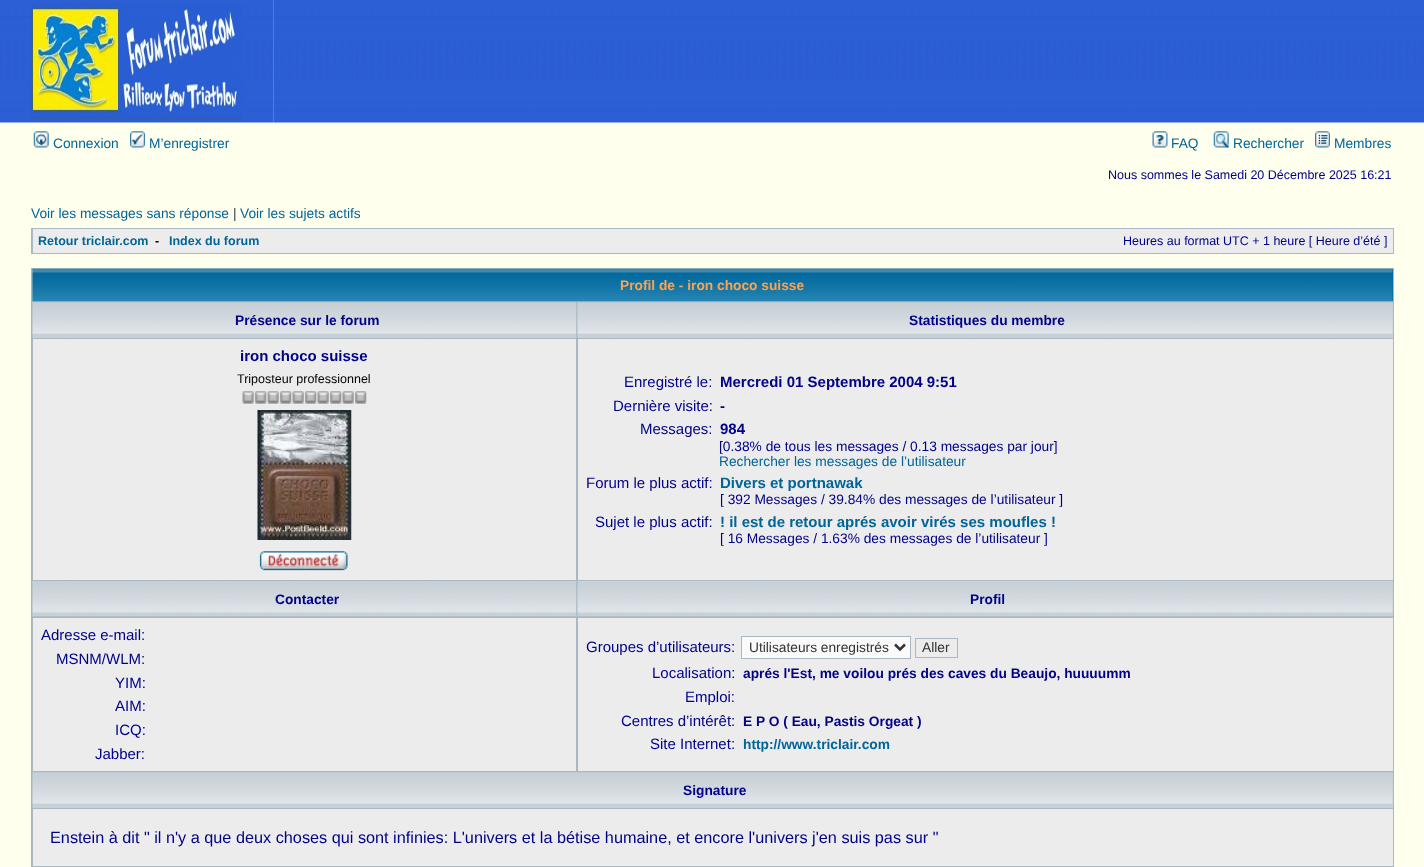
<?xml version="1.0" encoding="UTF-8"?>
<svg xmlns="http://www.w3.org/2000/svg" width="1424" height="867">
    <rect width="100%" height="100%" fill="#FFFFEE"/>
    <image x="0" y="0" width="274" height="123" href="img_01.png"/>
    <image x="30" y="3" width="213" height="117" href="img_02.png"/>
    <image x="273" y="0" width="1151" height="123" href="img_03.png"/>
    <image x="33" y="131" width="16" height="17" href="img_04.png"/>
    <text x="53" y="148" font-family="Liberation Sans" font-size="13.75" fill="#006597">Connexion</text>
    <image x="130" y="131" width="15" height="17" href="img_05.png"/>
    <text x="149" y="148" font-family="Liberation Sans" font-size="13.75" fill="#006597">M’enregistrer</text>
    <image x="1152" y="131" width="16" height="17" href="img_06.png"/>
    <text x="1171" y="148" font-family="Liberation Sans" font-size="13.75" fill="#006597">FAQ</text>
    <image x="1213" y="131" width="16" height="17" href="img_07.png"/>
    <text x="1233" y="148" font-family="Liberation Sans" font-size="13.75" fill="#006597">Rechercher</text>
    <image x="1315" y="131" width="15" height="17" href="img_08.png"/>
    <text x="1334" y="148" font-family="Liberation Sans" font-size="13.75" fill="#006597">Membres</text>
    <text x="1108" y="179" font-family="Liberation Sans" font-size="12.5" fill="#000088">Nous sommes le Samedi 20 Décembre 2025 16:21</text>
    <text x="31" y="218" font-family="Liberation Sans" font-size="13.75" fill="#006597">Voir les messages sans réponse</text>
    <text x="233" y="218" font-family="Liberation Sans" font-size="13.75" fill="#323D4F">|</text>
    <text x="240" y="218" font-family="Liberation Sans" font-size="13.75" fill="#006597">Voir les sujets actifs</text>
    <rect x="31" y="228" width="1363" height="26" fill="#A9B8C2"/>
    <rect x="33" y="229" width="1360" height="24" fill="#ECECEC"/>
    <text x="38" y="245" font-family="Liberation Sans" font-size="12.5" font-weight="700" fill="#006597">Retour triclair.com</text>
    <text x="155" y="245" font-family="Liberation Sans" font-size="12.5" font-weight="700" fill="#000000">-</text>
    <text x="169" y="245" font-family="Liberation Sans" font-size="12.5" font-weight="700" fill="#006597">Index du forum</text>
    <text x="1123" y="245" font-family="Liberation Sans" font-size="12.5" fill="#000088">Heures au format UTC + 1 heure [ Heure d’été ]</text>
    <rect x="31" y="268" width="1363" height="599" fill="#A9B8C2"/>
    <rect x="1392" y="269" width="1" height="32" fill="#006699"/>
    <image x="32" y="268" width="1361" height="34" href="img_09.png"/>
    <text x="620" y="290" font-family="Liberation Sans" font-size="13.75" font-weight="700" fill="#FFA34F">Profil de - iron choco suisse</text>
    <rect x="33" y="337" width="543" height="1" fill="#C7D0D7"/>
    <image x="32" y="302" width="545" height="36" href="img_10.png"/>
    <text x="235" y="325" font-family="Liberation Sans" font-size="13.75" font-weight="700" fill="#000088">Présence sur le forum</text>
    <rect x="578" y="303" width="815" height="35" fill="#C7D0D7"/>
    <image x="577" y="302" width="816" height="36" href="img_11.png"/>
    <text x="909" y="325" font-family="Liberation Sans" font-size="13.75" font-weight="700" fill="#000088">Statistiques du membre</text>
    <rect x="33" y="339" width="543" height="241" fill="#ECECEC"/>
    <text x="240" y="361" font-family="Liberation Sans" font-size="15" font-weight="700" fill="#000088">iron choco suisse</text>
    <text x="237" y="383" font-family="Liberation Sans" font-size="12.5" fill="#000000">Triposteur professionnel</text>
    <image x="242" y="391" width="125" height="13" href="img_12.png"/>
    <image x="257" y="410" width="95" height="130" href="img_13.png"/>
    <image x="259" y="551" width="89" height="20" href="img_14.png"/>
    <rect x="578" y="339" width="815" height="241" fill="#ECECEC"/>
    <text x="624" y="387" font-family="Liberation Sans" font-size="15" fill="#000088">Enregistré le:</text>
    <text x="720" y="387" font-family="Liberation Sans" font-size="15" font-weight="700" fill="#000088">Mercredi 01 Septembre 2004 9:51</text>
    <text x="613" y="411" font-family="Liberation Sans" font-size="15" fill="#000088">Dernière visite:</text>
    <text x="720" y="411" font-family="Liberation Sans" font-size="15" font-weight="700" fill="#000088">-</text>
    <text x="640" y="434" font-family="Liberation Sans" font-size="15" fill="#000088">Messages:</text>
    <text x="720" y="434" font-family="Liberation Sans" font-size="15" font-weight="700" fill="#000088">984</text>
    <text x="719" y="451" font-family="Liberation Sans" font-size="13.75" fill="#000088">[0.38% de tous les messages / 0.13 messages par jour]</text>
    <text x="719" y="466" font-family="Liberation Sans" font-size="13.75" fill="#006597">Rechercher les messages de l’utilisateur</text>
    <text x="586" y="488" font-family="Liberation Sans" font-size="15" fill="#000088">Forum le plus actif:</text>
    <text x="720" y="488" font-family="Liberation Sans" font-size="15" font-weight="700" fill="#006597">Divers et portnawak</text>
    <text x="720" y="504" font-family="Liberation Sans" font-size="13.75" fill="#000088">[ 392 Messages / 39.84% des messages de l’utilisateur ]</text>
    <text x="595" y="527" font-family="Liberation Sans" font-size="15" fill="#000088">Sujet le plus actif:</text>
    <text x="720" y="527" font-family="Liberation Sans" font-size="15" font-weight="700" fill="#006597">! il est de retour aprés avoir virés ses moufles !</text>
    <text x="720" y="543" font-family="Liberation Sans" font-size="13.75" fill="#000088">[ 16 Messages / 1.63% des messages de l’utilisateur ]</text>
    <image x="32" y="581" width="545" height="36" href="img_15.png"/>
    <text x="275" y="604" font-family="Liberation Sans" font-size="13.75" font-weight="700" fill="#000088">Contacter</text>
    <rect x="578" y="581" width="815" height="35" fill="#C7D0D7"/>
    <image x="577" y="581" width="816" height="36" href="img_16.png"/>
    <text x="970" y="604" font-family="Liberation Sans" font-size="13.75" font-weight="700" fill="#000088">Profil</text>
    <rect x="33" y="618" width="543" height="153" fill="#ECECEC"/>
    <text x="41" y="640" font-family="Liberation Sans" font-size="15" fill="#000088">Adresse e-mail:</text>
    <text x="56" y="664" font-family="Liberation Sans" font-size="15" fill="#000088">MSNM/WLM:</text>
    <text font-family="Liberation Sans" font-size="15" fill="#000088">
        <tspan x="115" y="688">YIM:</tspan>
        <tspan x="115" y="711">AIM:</tspan>
        <tspan x="115" y="735">ICQ:</tspan>
    </text>
    <text x="95" y="759" font-family="Liberation Sans" font-size="15" fill="#000088">Jabber:</text>
    <rect x="578" y="618" width="815" height="153" fill="#ECECEC"/>
    <text x="586" y="652" font-family="Liberation Sans" font-size="15" fill="#000088">Groupes d’utilisateurs:</text>
    <rect x="741.5" y="636.5" width="169" height="22" fill="#FAFAFA" stroke="#A9B8C2"/>
    <path d="M 895 644.5 L 900 649.5 L 905 644.5" fill="none" stroke="#333333" stroke-width="2.5"/>
    <text x="749" y="652" font-family="Liberation Sans" font-size="13.75" fill="#333333">Utilisateurs enregistrés</text>
    <rect x="915.5" y="638.5" width="42" height="19" fill="none" stroke="#A9B8C2"/>
    <text x="922" y="652" font-family="Liberation Sans" font-size="13.75" fill="#333333">Aller</text>
    <text x="652" y="678" font-family="Liberation Sans" font-size="15" fill="#000088">Localisation:</text>
    <text x="743" y="678" font-family="Liberation Sans" font-size="13.75" font-weight="700" fill="#000088">aprés l'Est, me voilou prés des caves du Beaujo, huuuumm</text>
    <text x="685" y="702" font-family="Liberation Sans" font-size="15" fill="#000088">Emploi:</text>
    <text x="621" y="726" font-family="Liberation Sans" font-size="15" fill="#000088">Centres d’intérêt:</text>
    <text x="743" y="726" font-family="Liberation Sans" font-size="13.75" font-weight="700" fill="#000088">E P O ( Eau, Pastis Orgeat )</text>
    <text x="650" y="749" font-family="Liberation Sans" font-size="15" fill="#000088">Site Internet:</text>
    <text x="743" y="749" font-family="Liberation Sans" font-size="13.75" font-weight="700" fill="#006597">http://www.triclair.com</text>
    <rect x="33" y="773" width="1360" height="35" fill="#C7D0D7"/>
    <image x="32" y="772" width="1361" height="36" href="img_17.png"/>
    <text x="683" y="795" font-family="Liberation Sans" font-size="13.75" font-weight="700" fill="#000088">Signature</text>
    <rect x="33" y="809" width="1360" height="57" fill="#ECECEC"/>
    <text x="50" y="843" font-family="Liberation Sans" font-size="16.25" fill="#000088">Enstein à dit " il n'y a que deux choses qui sont infinies: L'univers et la bétise humaine, et encore l'univers j'en suis pas sur "</text>
</svg>
